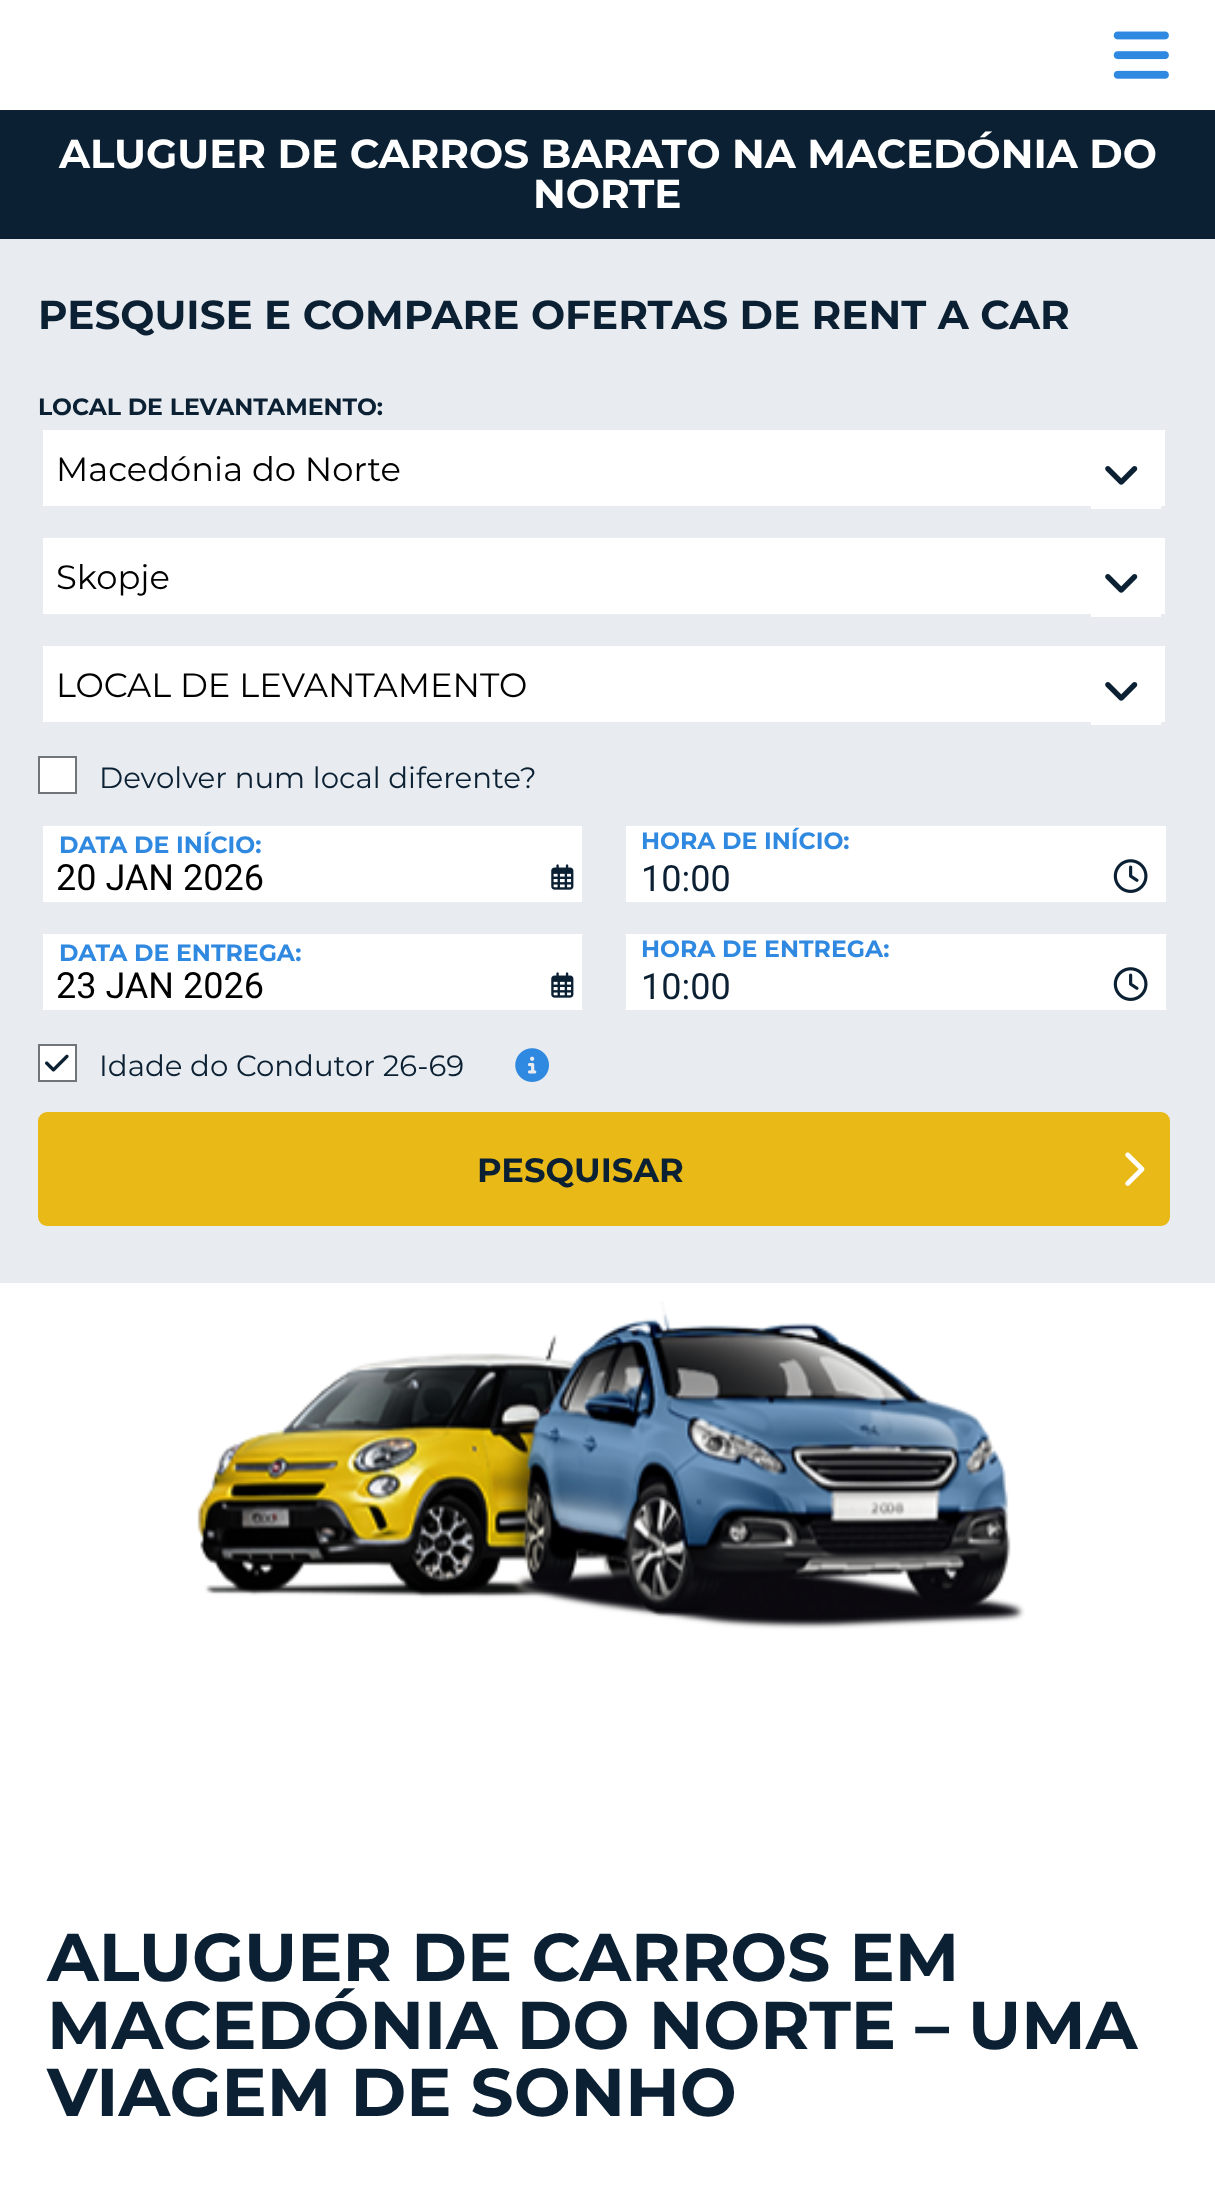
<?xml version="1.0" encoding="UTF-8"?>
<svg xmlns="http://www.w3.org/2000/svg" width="1215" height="2187">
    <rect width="100%" height="100%" fill="#FFFFFF"/>
    <image x="1113" y="31" width="56" height="48" href="img_01.png"/>
    <rect x="0" y="110" width="1215" height="129" fill="#0B2033"/>
    <text x="59" y="168" font-family="Montserrat" font-size="40.5" font-weight="700" fill="#FFFFFF">ALUGUER DE CARROS BARATO NA MACEDÓNIA DO</text>
    <text x="533" y="208" font-family="Montserrat" font-size="40.5" font-weight="700" fill="#FFFFFF">NORTE</text>
    <rect x="0" y="239" width="1215" height="1044" fill="#E8ECF0"/>
    <text x="38" y="329" font-family="Montserrat" font-size="40.5" font-weight="700" fill="#0B2033">PESQUISE E COMPARE OFERTAS DE RENT A CAR</text>
    <text x="38" y="415" font-family="Montserrat" font-size="23.6" font-weight="700" fill="#0B2033">LOCAL DE LEVANTAMENTO:</text>
    <rect x="43" y="430" width="1122" height="76" fill="#FFFFFF"/>
    <text x="56" y="481" font-family="Montserrat" font-size="33.75" fill="#000000">Macedónia do Norte</text>
    <rect x="1091" y="506" width="70" height="3" fill="#FFFFFF"/>
    <image x="1105" y="466" width="33" height="19" href="img_02.png"/>
    <rect x="43" y="538" width="1122" height="76" fill="#FFFFFF"/>
    <text x="56" y="589" font-family="Montserrat" font-size="33.75" fill="#000000">Skopje</text>
    <rect x="1091" y="614" width="70" height="3" fill="#FFFFFF"/>
    <image x="1105" y="574" width="33" height="19" href="img_02.png"/>
    <rect x="43" y="646" width="1122" height="76" fill="#FFFFFF"/>
    <text x="56" y="697" font-family="Montserrat" font-size="33.75" fill="#000000">LOCAL DE LEVANTAMENTO</text>
    <rect x="1091" y="722" width="70" height="3" fill="#FFFFFF"/>
    <image x="1105" y="682" width="33" height="19" href="img_02.png"/>
    <rect x="39" y="757" width="37" height="36" fill="#FFFFFF" stroke="#6F7579" stroke-width="2"/>
    <text x="99" y="788" font-family="Montserrat" font-size="29.25" fill="#0B2033">Devolver num local diferente?</text>
    <rect x="43" y="826" width="539" height="76" fill="#FFFFFF"/>
    <text x="59" y="853" font-family="Montserrat" font-size="23.6" font-weight="700" fill="#3089E0">DATA DE INÍCIO:</text>
    <text x="56" y="890" font-family="Roboto" font-size="36" fill="#000000">20 JAN 2026</text>
    <image x="551" y="864" width="23" height="26" href="img_03.png"/>
    <rect x="626" y="826" width="540" height="76" fill="#FFFFFF"/>
    <text x="641" y="849" font-family="Montserrat" font-size="23.6" font-weight="700" fill="#3089E0">HORA DE INÍCIO:</text>
    <text x="641" y="891" font-family="Roboto" font-size="36" fill="#0B2033">10:00</text>
    <image x="1113" y="859" width="35" height="34" href="img_04.png"/>
    <rect x="43" y="934" width="539" height="76" fill="#FFFFFF"/>
    <text x="59" y="961" font-family="Montserrat" font-size="23.6" font-weight="700" fill="#3089E0">DATA DE ENTREGA:</text>
    <text x="56" y="998" font-family="Roboto" font-size="36" fill="#000000">23 JAN 2026</text>
    <image x="551" y="972" width="23" height="26" href="img_03.png"/>
    <rect x="626" y="934" width="540" height="76" fill="#FFFFFF"/>
    <text x="641" y="957" font-family="Montserrat" font-size="23.6" font-weight="700" fill="#3089E0">HORA DE ENTREGA:</text>
    <text x="641" y="999" font-family="Roboto" font-size="36" fill="#0B2033">10:00</text>
    <image x="1113" y="967" width="35" height="34" href="img_04.png"/>
    <rect x="39" y="1045" width="37" height="36" fill="#FFFFFF" stroke="#6F7579" stroke-width="2"/>
    <image x="45" y="1054" width="24" height="18" href="img_05.png"/>
    <text x="99" y="1076" font-family="Montserrat" font-size="29.25" fill="#0B2033">Idade do Condutor 26-69</text>
    <image x="515" y="1048" width="34" height="34" href="img_06.png"/>
    <rect x="39" y="1113" width="1130" height="112" rx="8" fill="#E8B917" stroke="#E8B917" stroke-width="2"/>
    <text x="477" y="1182" font-family="Montserrat" font-size="33.75" font-weight="700" fill="#0B2033">PESQUISAR</text>
    <image x="1125" y="1152" width="20" height="34" href="img_07.png"/>
    <image x="197" y="1301" width="828" height="329" href="img_08.png"/>
    <text font-family="Montserrat" font-size="67.5" font-weight="700" fill="#0B2033">
        <tspan x="47" y="1981">ALUGUER DE CARROS EM</tspan>
        <tspan x="47" y="2049">MACEDÓNIA DO NORTE – UMA</tspan>
        <tspan x="47" y="2116">VIAGEM DE SONHO</tspan>
    </text>
</svg>
